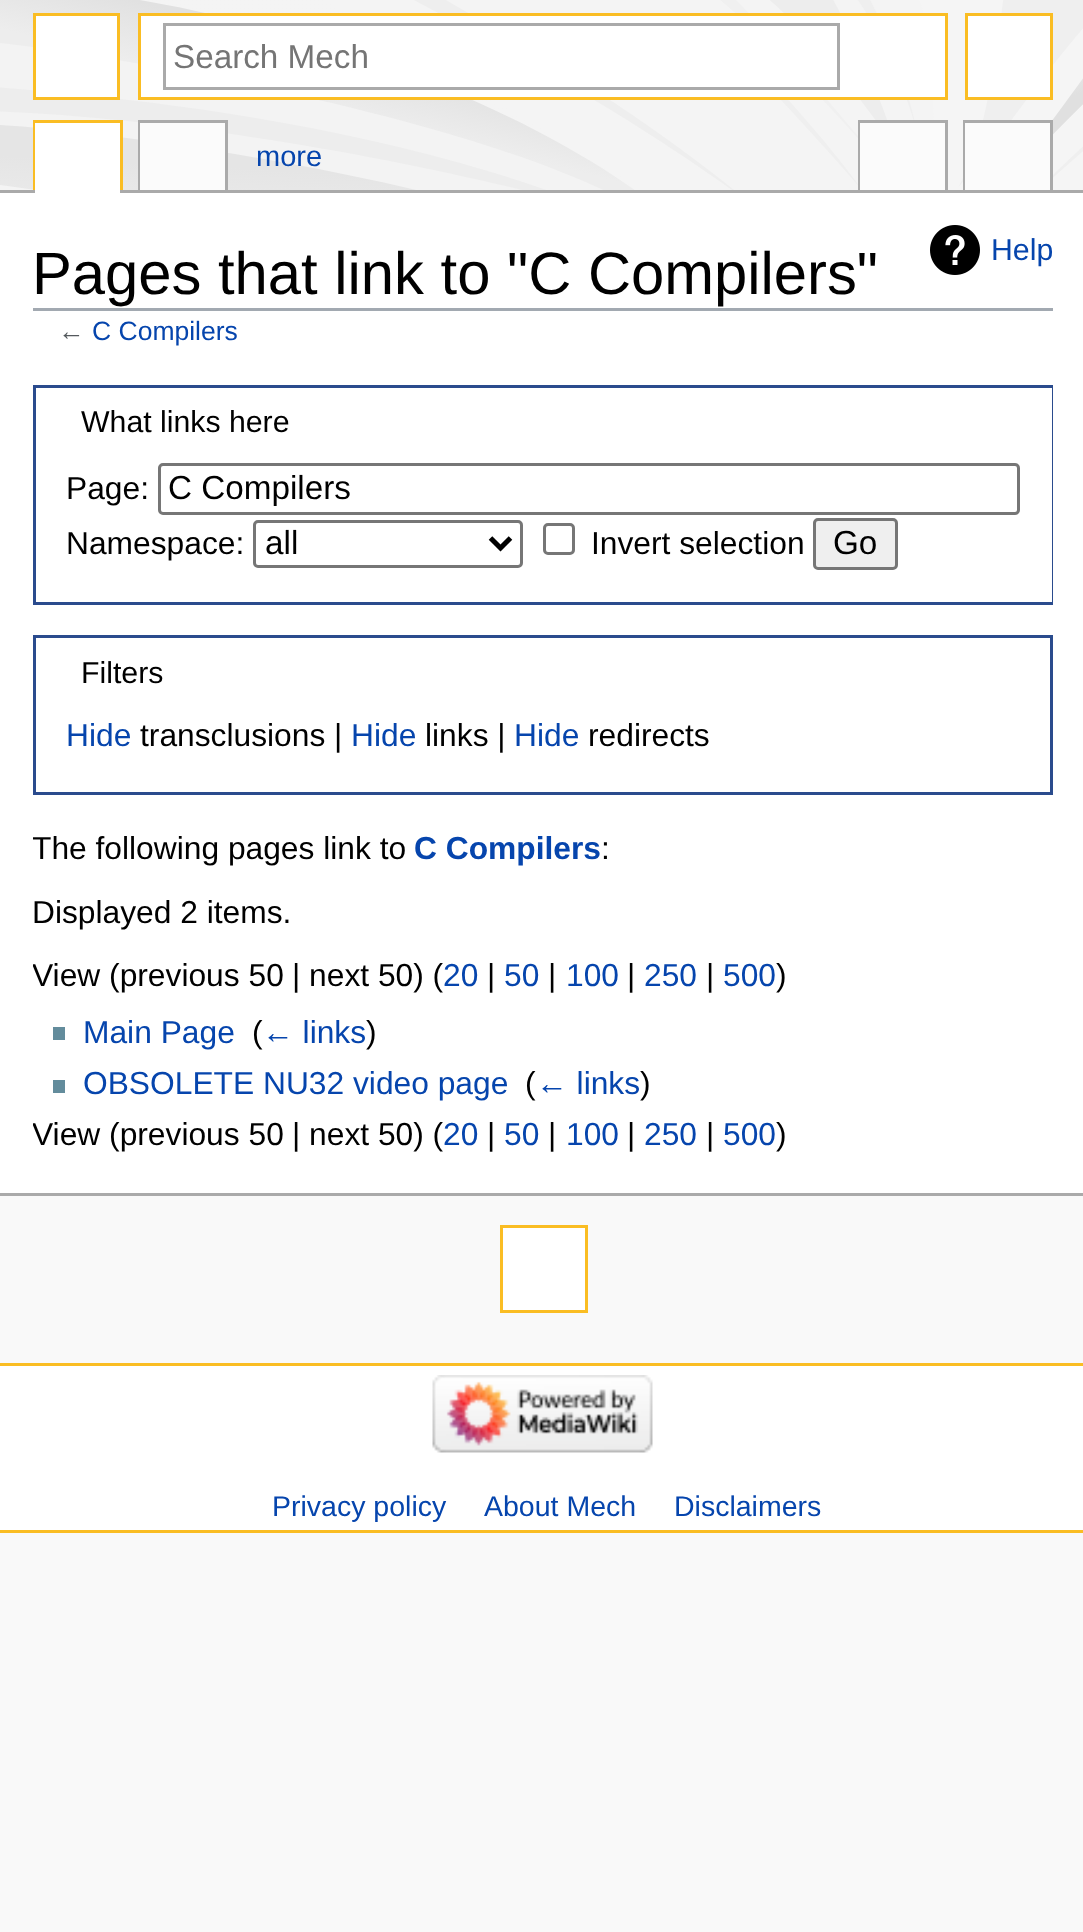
<?xml version="1.0" encoding="UTF-8"?>
<svg xmlns="http://www.w3.org/2000/svg" width="1083" height="1932">
    <defs>
        <clipPath id="clip1"><rect x="33" y="315" width="1020" height="845"/></clipPath>
    </defs>
    <rect width="100%" height="100%" fill="#F9F9F9"/>
    <image x="0" y="0" width="1083" height="190" href="img_01.png"/>
    <rect x="34.5" y="14.5" width="84" height="84" fill="#FFFFFF" stroke="#FABD23" stroke-width="3"/>
    <rect x="139.5" y="14.5" width="807" height="84" fill="#FFFFFF" stroke="#FABD23" stroke-width="3"/>
    <rect x="164.5" y="24.5" width="674" height="64" fill="none" stroke="#AAAAAA" stroke-width="3"/>
    <text x="173" y="68" font-family="Liberation Sans" font-size="33.25" fill="#757575">Search Mech</text>
    <rect x="966.5" y="14.5" width="85" height="84" fill="#FFFFFF" stroke="#FABD23" stroke-width="3"/>
    <rect x="33" y="120" width="90" height="3" fill="#FABD23"/>
    <rect x="120" y="120" width="3" height="73" fill="#FABD23"/>
    <rect x="33" y="120" width="3" height="73" fill="#FABD23"/>
    <rect x="138" y="120" width="90" height="3" fill="#AAAAAA"/>
    <rect x="225" y="120" width="3" height="73" fill="#AAAAAA"/>
    <rect x="138" y="120" width="3" height="73" fill="#AAAAAA"/>
    <rect x="858" y="120" width="90" height="3" fill="#AAAAAA"/>
    <rect x="945" y="120" width="3" height="73" fill="#AAAAAA"/>
    <rect x="858" y="120" width="3" height="73" fill="#AAAAAA"/>
    <rect x="963" y="120" width="90" height="3" fill="#AAAAAA"/>
    <rect x="1050" y="120" width="3" height="73" fill="#AAAAAA"/>
    <rect x="963" y="120" width="3" height="73" fill="#AAAAAA"/>
    <rect x="0" y="190" width="1083" height="3" fill="#AAAAAA"/>
    <rect x="35" y="123" width="85" height="70" fill="#FFFFFF"/>
    <rect x="140" y="123" width="85" height="67" fill="#FBFBFB"/>
    <text x="256" y="166" font-family="Liberation Sans" font-size="29" fill="#0645AD">more</text>
    <rect x="860" y="123" width="85" height="67" fill="#FBFBFB"/>
    <rect x="965" y="123" width="85" height="67" fill="#FBFBFB"/>
    <rect x="501.5" y="1226.5" width="85" height="85" fill="#FFFFFF" stroke="#FABD23" stroke-width="3"/>
    <rect x="0" y="193" width="1083" height="1000" fill="#FFFFFF"/>
    <rect x="0" y="1193" width="1083" height="3" fill="#AAAAAA"/>
    <rect x="33" y="308" width="1020" height="3" fill="#A2A9B1"/>
    <text x="32" y="294" font-family="Liberation Sans" font-size="59.75" fill="#000000">Pages that link to "C Compilers"</text>
    <image x="930" y="225" width="50" height="50" href="img_02.png"/>
    <text x="991" y="260" font-family="Liberation Sans" font-size="30.25" fill="#0645AD">Help</text>
    <text x="58" y="340" font-family="Liberation Sans" font-size="26.5" fill="#54595D">←</text>
    <text x="92" y="340" font-family="Liberation Sans" font-size="26.5" fill="#0645AD">C Compilers</text>
    <g clip-path="url(#clip1)">
        <rect x="34.5" y="386.5" width="1019" height="217" fill="none" stroke="#2A4B8D" stroke-width="3"/>
    </g>
    <text x="81" y="432" font-family="Liberation Sans" font-size="30.25" fill="#000000">What links here</text>
    <text x="66" y="499" font-family="Liberation Sans" font-size="31.75" fill="#000000">Page:</text>
    <rect x="159.5" y="464.5" width="859" height="49" rx="3.5" fill="none" stroke="#767676" stroke-width="3"/>
    <text x="168" y="499" font-family="Liberation Sans" font-size="33.25" fill="#000000">C Compilers</text>
    <text x="66" y="554" font-family="Liberation Sans" font-size="31.75" fill="#000000">Namespace:</text>
    <rect x="254.5" y="521.5" width="267" height="45" rx="3.5" fill="none" stroke="#767676" stroke-width="3"/>
    <path d="M 490.5 538 L 500.5 548 L 510.5 538" fill="none" stroke="#000000" stroke-width="5"/>
    <text x="265" y="554" font-family="Liberation Sans" font-size="33.25" fill="#000000">all</text>
    <rect x="544.5" y="524.5" width="29" height="29" rx="3.5" fill="none" stroke="#767676" stroke-width="3"/>
    <text x="591" y="554" font-family="Liberation Sans" font-size="31.75" fill="#000000">Invert selection</text>
    <rect x="814.5" y="519.5" width="82" height="49" rx="3.5" fill="#EFEFEF" stroke="#767676" stroke-width="3"/>
    <text x="833" y="554" font-family="Liberation Sans" font-size="33.25" fill="#000000">Go</text>
    <rect x="34.5" y="636.5" width="1017" height="157" fill="none" stroke="#2A4B8D" stroke-width="3"/>
    <text x="81" y="683" font-family="Liberation Sans" font-size="30.25" fill="#000000">Filters</text>
    <text x="66" y="746" font-family="Liberation Sans" font-size="31.75" fill="#0645AD">Hide</text>
    <text x="140" y="746" font-family="Liberation Sans" font-size="31.75" fill="#000000">transclusions |</text>
    <text x="351" y="746" font-family="Liberation Sans" font-size="31.75" fill="#0645AD">Hide</text>
    <text x="425" y="746" font-family="Liberation Sans" font-size="31.75" fill="#000000">links |</text>
    <text x="514" y="746" font-family="Liberation Sans" font-size="31.75" fill="#0645AD">Hide</text>
    <text x="588" y="746" font-family="Liberation Sans" font-size="31.75" fill="#000000">redirects</text>
    <g clip-path="url(#clip1)">
        <text x="32" y="859" font-family="Liberation Sans" font-size="31.75" fill="#000000">The following pages link to</text>
    </g>
    <text x="414" y="859" font-family="Liberation Sans" font-size="31.75" font-weight="700" fill="#0645AD">C Compilers</text>
    <text x="601" y="859" font-family="Liberation Sans" font-size="31.75" fill="#000000">:</text>
    <text x="32" y="923" font-family="Liberation Sans" font-size="31.75" fill="#000000">Displayed 2 items.</text>
    <g clip-path="url(#clip1)">
        <text x="32" y="986" font-family="Liberation Sans" font-size="31.75" fill="#000000">View (previous 50</text>
    </g>
    <text x="292" y="986" font-family="Liberation Sans" font-size="31.75" fill="#000000">| next 50) (</text>
    <text x="443" y="986" font-family="Liberation Sans" font-size="31.75" fill="#0645AD">20</text>
    <text x="487" y="986" font-family="Liberation Sans" font-size="31.75" fill="#000000">|</text>
    <text x="504" y="986" font-family="Liberation Sans" font-size="31.75" fill="#0645AD">50</text>
    <text x="548" y="986" font-family="Liberation Sans" font-size="31.75" fill="#000000">|</text>
    <text x="566" y="986" font-family="Liberation Sans" font-size="31.75" fill="#0645AD">100</text>
    <text x="627" y="986" font-family="Liberation Sans" font-size="31.75" fill="#000000">|</text>
    <text x="644" y="986" font-family="Liberation Sans" font-size="31.75" fill="#0645AD">250</text>
    <text x="706" y="986" font-family="Liberation Sans" font-size="31.75" fill="#000000">|</text>
    <text x="723" y="986" font-family="Liberation Sans" font-size="31.75" fill="#0645AD">500</text>
    <text x="776" y="986" font-family="Liberation Sans" font-size="31.75" fill="#000000">)</text>
    <rect x="53" y="1027" width="12" height="13" fill="#638C9C"/>
    <text x="83" y="1043" font-family="Liberation Sans" font-size="31.75" fill="#0645AD">Main Page</text>
    <text x="252" y="1043" font-family="Liberation Sans" font-size="31.75" fill="#000000">(</text>
    <text x="262" y="1043" font-family="Liberation Sans" font-size="31.75" fill="#0645AD">← links</text>
    <text x="366" y="1043" font-family="Liberation Sans" font-size="31.75" fill="#000000">)</text>
    <rect x="53" y="1080" width="12" height="13" fill="#638C9C"/>
    <text x="83" y="1094" font-family="Liberation Sans" font-size="31.75" fill="#0645AD">OBSOLETE NU32 video page</text>
    <text x="525" y="1094" font-family="Liberation Sans" font-size="31.75" fill="#000000">(</text>
    <text x="536" y="1094" font-family="Liberation Sans" font-size="31.75" fill="#0645AD">← links</text>
    <text x="640" y="1094" font-family="Liberation Sans" font-size="31.75" fill="#000000">)</text>
    <g clip-path="url(#clip1)">
        <text x="32" y="1145" font-family="Liberation Sans" font-size="31.75" fill="#000000">View (previous 50</text>
    </g>
    <text x="292" y="1145" font-family="Liberation Sans" font-size="31.75" fill="#000000">| next 50) (</text>
    <text x="443" y="1145" font-family="Liberation Sans" font-size="31.75" fill="#0645AD">20</text>
    <text x="487" y="1145" font-family="Liberation Sans" font-size="31.75" fill="#000000">|</text>
    <text x="504" y="1145" font-family="Liberation Sans" font-size="31.75" fill="#0645AD">50</text>
    <text x="548" y="1145" font-family="Liberation Sans" font-size="31.75" fill="#000000">|</text>
    <text x="566" y="1145" font-family="Liberation Sans" font-size="31.75" fill="#0645AD">100</text>
    <text x="627" y="1145" font-family="Liberation Sans" font-size="31.75" fill="#000000">|</text>
    <text x="644" y="1145" font-family="Liberation Sans" font-size="31.75" fill="#0645AD">250</text>
    <text x="706" y="1145" font-family="Liberation Sans" font-size="31.75" fill="#000000">|</text>
    <text x="723" y="1145" font-family="Liberation Sans" font-size="31.75" fill="#0645AD">500</text>
    <text x="776" y="1145" font-family="Liberation Sans" font-size="31.75" fill="#000000">)</text>
    <rect x="0" y="1366" width="1083" height="164" fill="#FFFFFF"/>
    <rect x="0" y="1363" width="1083" height="3" fill="#FABD23"/>
    <rect x="0" y="1530" width="1083" height="3" fill="#FABD23"/>
    <image x="432" y="1375" width="221" height="78" href="img_03.png"/>
    <text x="272" y="1516" font-family="Liberation Sans" font-size="28.5" fill="#0645AD">Privacy policy</text>
    <text x="484" y="1516" font-family="Liberation Sans" font-size="28.5" fill="#0645AD">About Mech</text>
    <text x="674" y="1516" font-family="Liberation Sans" font-size="28.5" fill="#0645AD">Disclaimers</text>
</svg>
